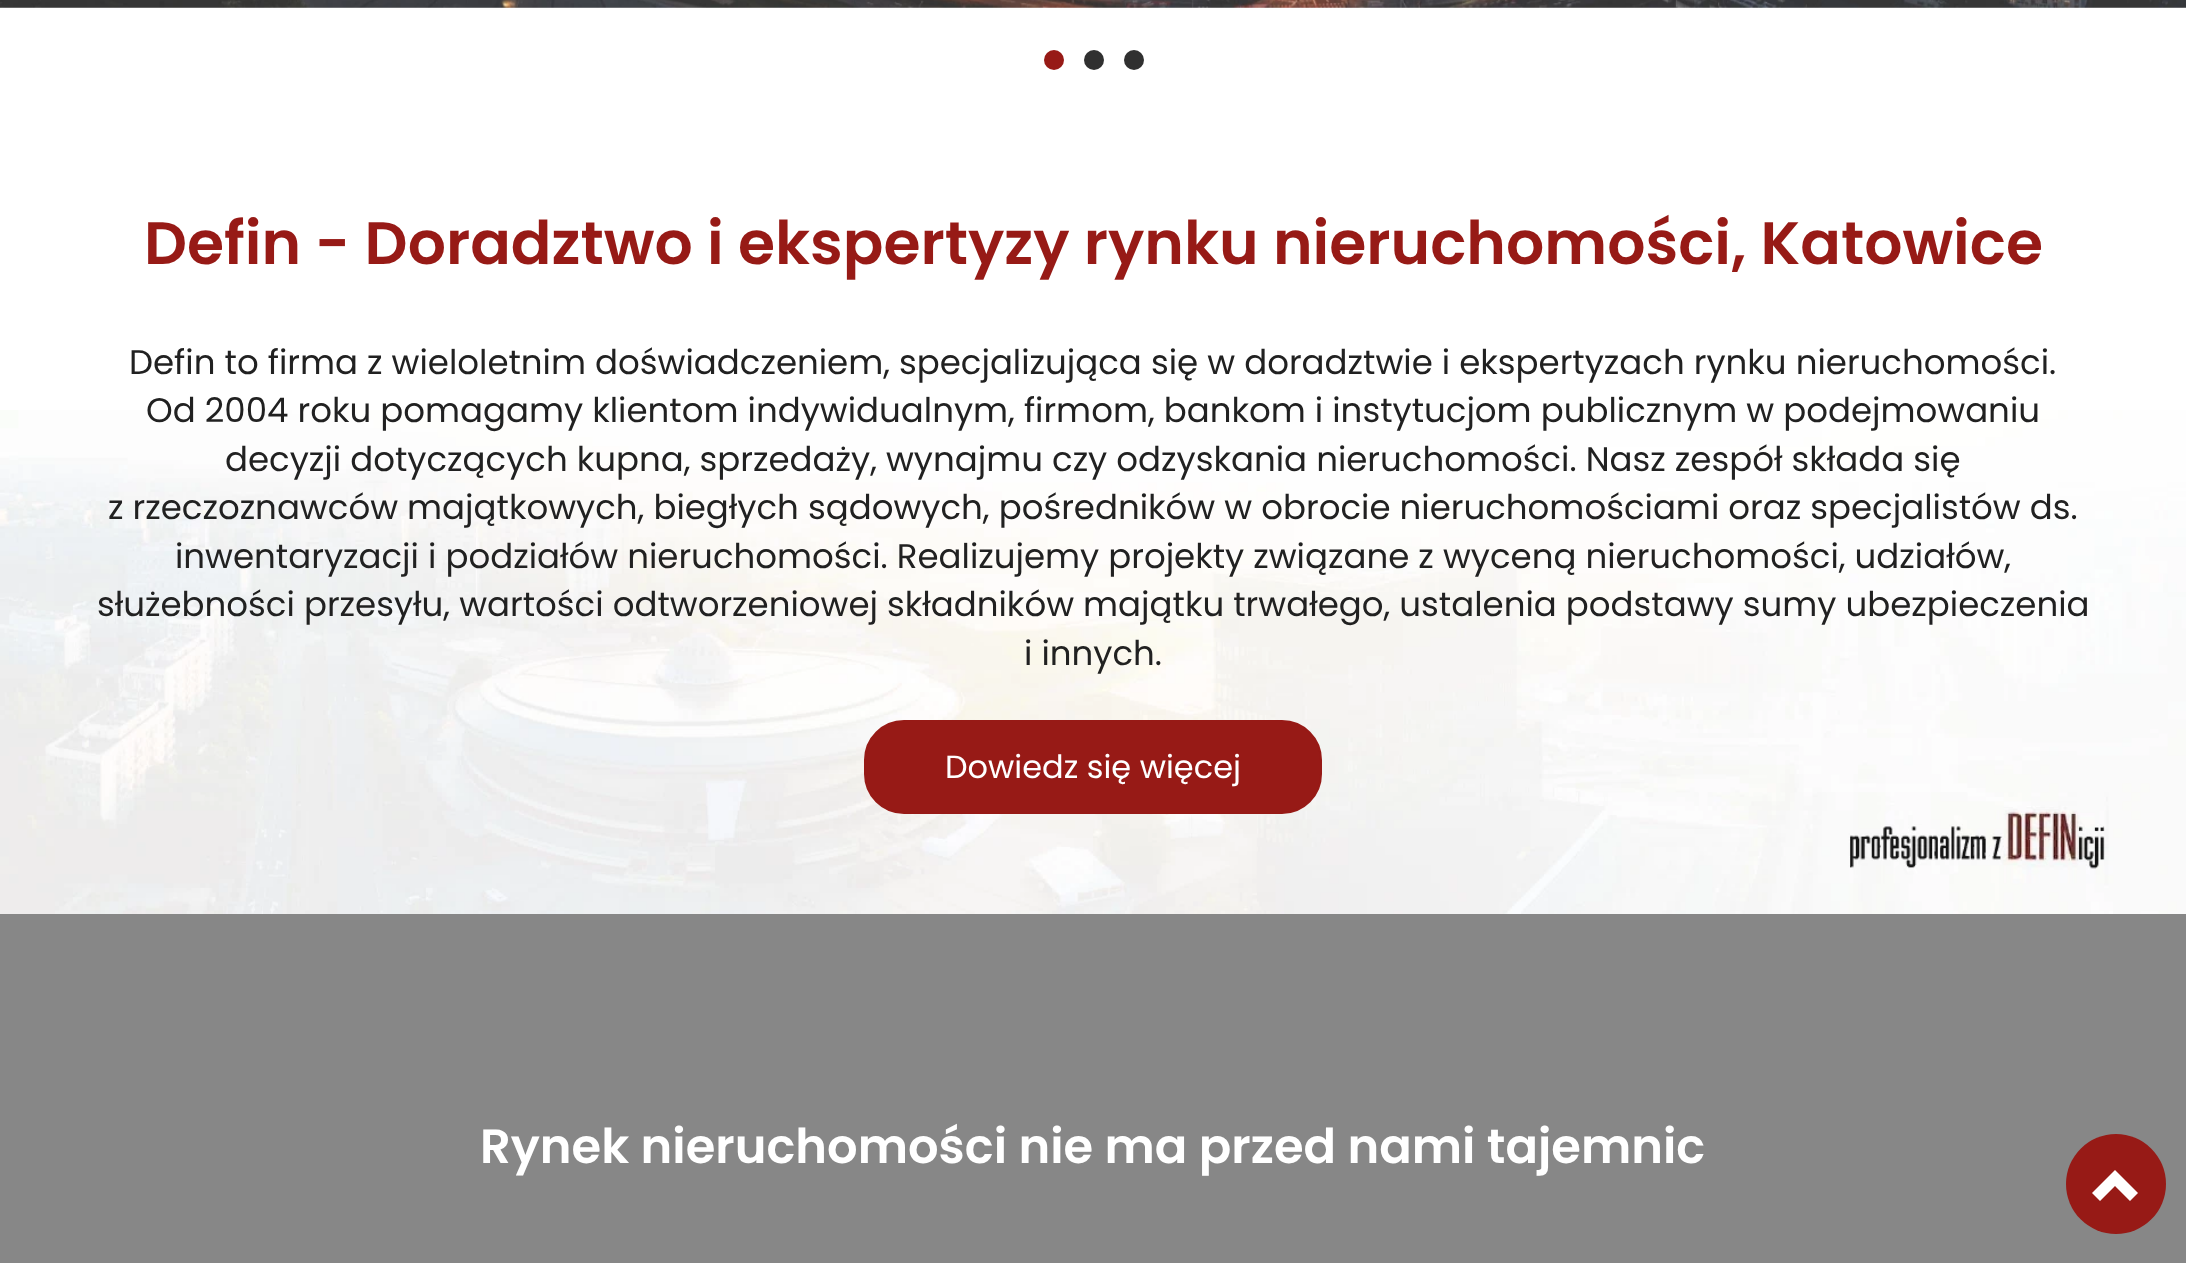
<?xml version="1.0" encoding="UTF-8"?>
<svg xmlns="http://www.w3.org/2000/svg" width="2186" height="1263">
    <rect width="100%" height="100%" fill="#FFFFFF"/>
    <image x="0" y="0" width="2186" height="8" href="img_01.png"/>
    <circle cx="1054" cy="60" r="10" fill="#971A16"/>
    <circle cx="1094" cy="60" r="10" fill="#303030"/>
    <circle cx="1134" cy="60" r="10" fill="#303030"/>
    <image x="0" y="410" width="2186" height="504" href="img_02.png"/>
    <text x="144" y="264" font-family="Poppins" font-size="60" font-weight="600" fill="#971A16">Defin - Doradztwo i ekspertyzy rynku nieruchomości, Katowice</text>
    <text x="129" y="374" font-family="Poppins" font-size="34" fill="#212121">Defin to firma z wieloletnim doświadczeniem, specjalizująca się w doradztwie i ekspertyzach rynku nieruchomości.</text>
    <text x="146" y="422" font-family="Poppins" font-size="34" fill="#212121">Od 2004 roku pomagamy klientom indywidualnym, firmom, bankom i instytucjom publicznym w podejmowaniu</text>
    <text x="225" y="471" font-family="Poppins" font-size="34" fill="#212121">decyzji dotyczących kupna, sprzedaży, wynajmu czy odzyskania nieruchomości. Nasz zespół składa się</text>
    <text x="108" y="519" font-family="Poppins" font-size="34" fill="#212121">z rzeczoznawców majątkowych, biegłych sądowych, pośredników w obrocie nieruchomościami oraz specjalistów ds.</text>
    <text x="175" y="568" font-family="Poppins" font-size="34" fill="#212121">inwentaryzacji i podziałów nieruchomości. Realizujemy projekty związane z wyceną nieruchomości, udziałów,</text>
    <text x="97" y="616" font-family="Poppins" font-size="34" fill="#212121">służebności przesyłu, wartości odtworzeniowej składników majątku trwałego, ustalenia podstawy sumy ubezpieczenia</text>
    <text x="1024" y="665" font-family="Poppins" font-size="34" fill="#212121">i innych.</text>
    <rect x="865" y="721" width="456" height="92" rx="39" fill="#971A16" stroke="#971A16" stroke-width="2"/>
    <text x="945" y="778" font-family="Poppins" font-size="32" fill="#FFFFFF">Dowiedz się więcej</text>
    <rect x="0" y="914" width="2186" height="349" fill="#878787"/>
    <text x="480" y="1163" font-family="Poppins" font-size="48" font-weight="600" fill="#FFFFFF">Rynek nieruchomości nie ma przed nami tajemnic</text>
    <circle cx="2116" cy="1184" r="50" fill="#971A16"/>
    <path d="M 2138 1193 L 2130 1201 L 2115 1186 L 2100 1201 L 2092 1193 L 2115 1170 Z" fill="#FFFFFF"/>
</svg>
